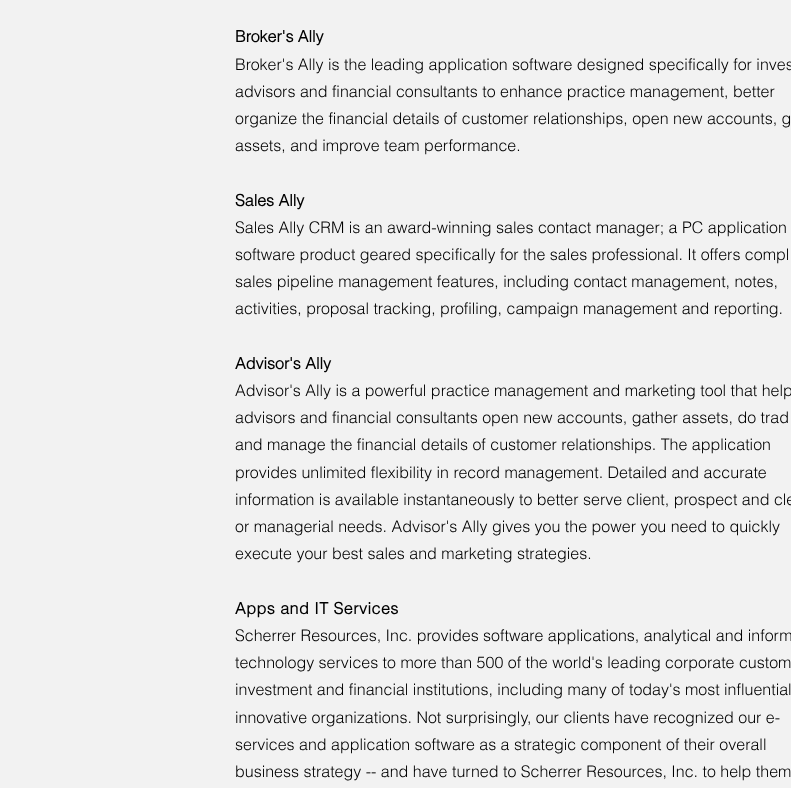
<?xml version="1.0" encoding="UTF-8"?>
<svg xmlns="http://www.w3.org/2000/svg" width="791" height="788">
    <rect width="100%" height="100%" fill="#F2F2F2"/>
    <text x="235" y="42" font-family="helvetica" font-size="16" font-weight="700" fill="#000000">Broker's Ally</text>
    <text font-family="helvetica" font-size="16" font-weight="300" fill="#000000">
        <tspan x="235" y="70">Broker's Ally is the leading application software designed specifically for inves</tspan>
        <tspan x="235" y="97">advisors and financial consultants to enhance practice management, better</tspan>
        <tspan x="235" y="124">organize the financial details of customer relationships, open new accounts, g</tspan>
        <tspan x="235" y="151">assets, and improve team performance.</tspan>
    </text>
    <text x="235" y="206" font-family="helvetica" font-size="16" font-weight="700" fill="#000000">Sales Ally</text>
    <text font-family="helvetica" font-size="16" font-weight="300" fill="#000000">
        <tspan x="235" y="233">Sales Ally CRM is an award-winning sales contact manager; a PC application</tspan>
        <tspan x="235" y="260">software product geared specifically for the sales professional. It offers compl</tspan>
        <tspan x="235" y="287">sales pipeline management features, including contact management, notes,</tspan>
        <tspan x="235" y="314">activities, proposal tracking, profiling, campaign management and reporting.</tspan>
    </text>
    <text x="235" y="369" font-family="helvetica" font-size="16" font-weight="700" fill="#000000">Advisor's Ally</text>
    <text font-family="helvetica" font-size="16" font-weight="300" fill="#000000">
        <tspan x="235" y="396">Advisor's Ally is a powerful practice management and marketing tool that help</tspan>
        <tspan x="235" y="423">advisors and financial consultants open new accounts, gather assets, do trad</tspan>
        <tspan x="235" y="450">and manage the financial details of customer relationships. The application</tspan>
        <tspan x="235" y="478">provides unlimited flexibility in record management. Detailed and accurate</tspan>
        <tspan x="235" y="505">information is available instantaneously to better serve client, prospect and cle</tspan>
        <tspan x="235" y="532">or managerial needs. Advisor's Ally gives you the power you need to quickly</tspan>
        <tspan x="235" y="559">execute your best sales and marketing strategies.</tspan>
    </text>
    <text x="235" y="614" font-family="helvetica" font-size="16" font-weight="700" letter-spacing="0.5" fill="#000000">Apps and IT Services</text>
    <text font-family="helvetica" font-size="16" font-weight="300" fill="#000000">
        <tspan x="235" y="641">Scherrer Resources, Inc. provides software applications, analytical and inform</tspan>
        <tspan x="235" y="668">technology services to more than 500 of the world's leading corporate custom</tspan>
        <tspan x="235" y="695">investment and financial institutions, including many of today's most influential</tspan>
        <tspan x="235" y="723">innovative organizations. Not surprisingly, our clients have recognized our e-</tspan>
        <tspan x="235" y="750">services and application software as a strategic component of their overall</tspan>
        <tspan x="235" y="777">business strategy -- and have turned to Scherrer Resources, Inc. to help them</tspan>
    </text>
</svg>
